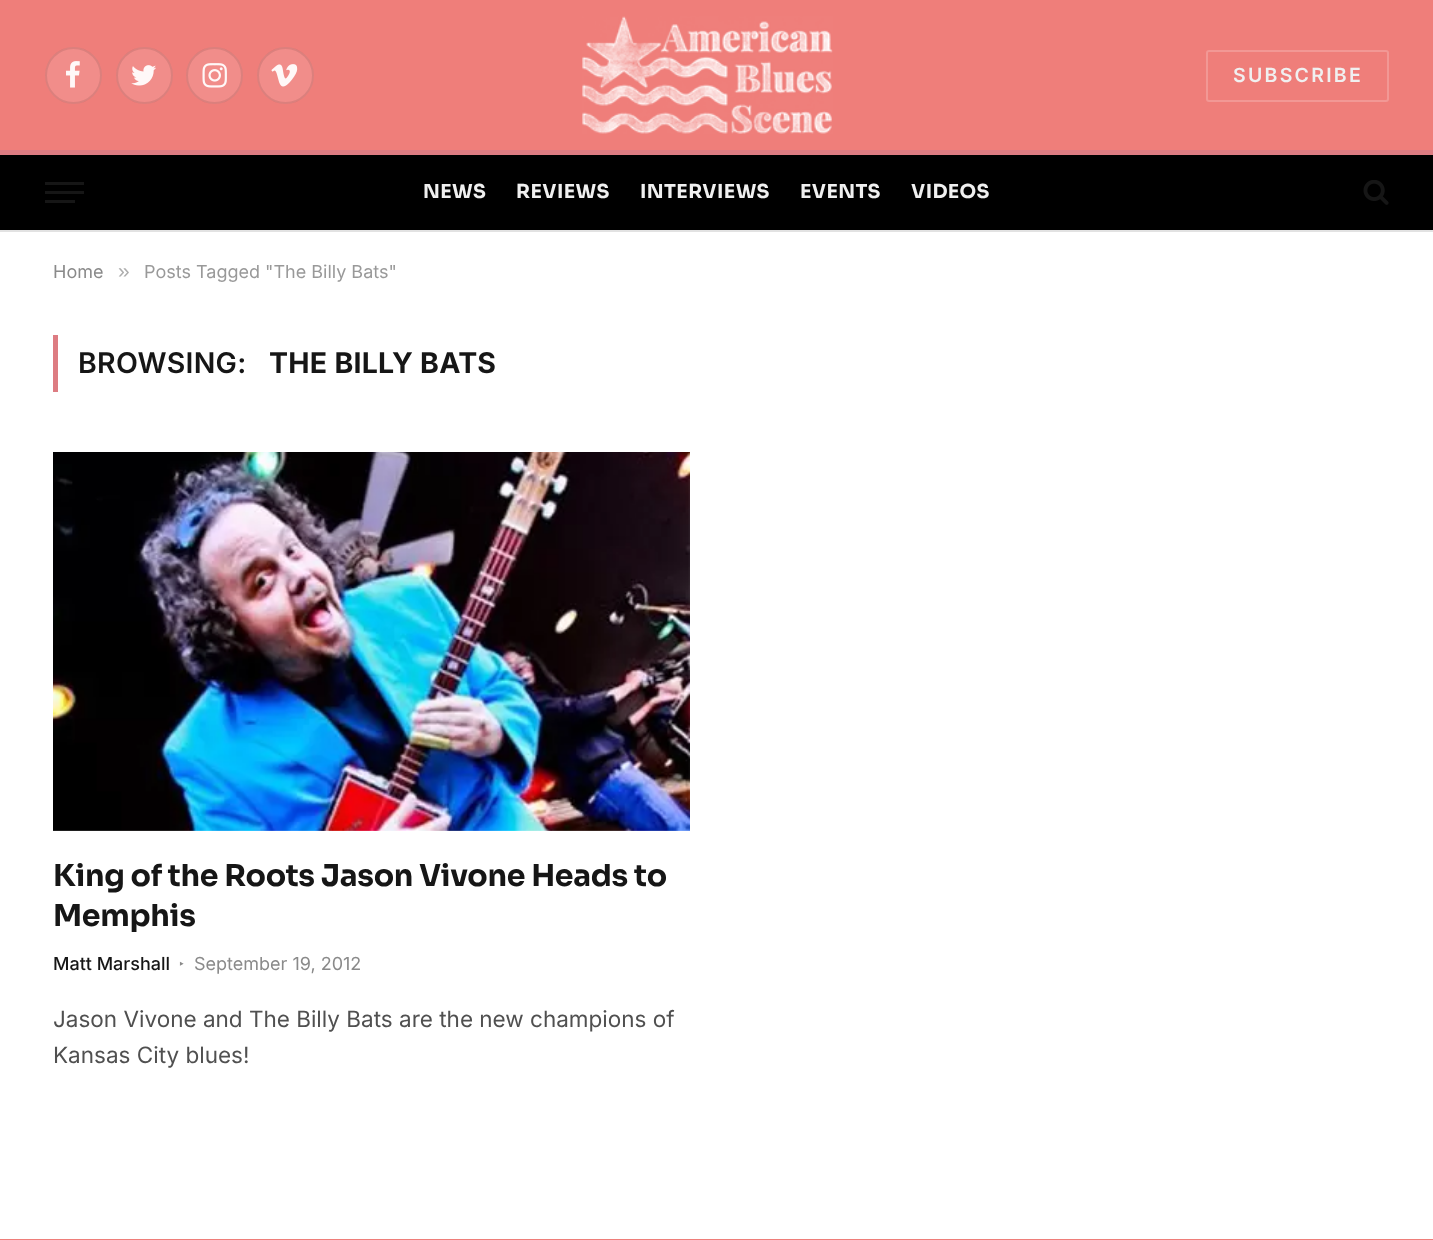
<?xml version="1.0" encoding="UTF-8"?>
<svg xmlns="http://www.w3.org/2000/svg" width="1433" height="1240">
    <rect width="100%" height="100%" fill="#FFFFFF"/>
    <rect x="0" y="0" width="1433" height="150" fill="#EF7E7A"/>
    <circle cx="73.5" cy="75.5" r="28.5" fill="#F18D8A"/>
    <circle cx="73.5" cy="75.5" r="27.5" fill="none" stroke="#000000" stroke-opacity="0.09" stroke-width="2"/>
    <image x="66" y="61" width="14" height="27" href="img_01.png"/>
    <circle cx="144.5" cy="75.5" r="28.5" fill="#F18D8A"/>
    <circle cx="144.5" cy="75.5" r="27.5" fill="none" stroke="#000000" stroke-opacity="0.09" stroke-width="2"/>
    <image x="131" y="65" width="25" height="21" href="img_02.png"/>
    <circle cx="214.5" cy="75.5" r="28.5" fill="#F18D8A"/>
    <circle cx="214.5" cy="75.5" r="27.5" fill="none" stroke="#000000" stroke-opacity="0.09" stroke-width="2"/>
    <image x="202" y="63" width="25" height="25" href="img_03.png"/>
    <circle cx="285.5" cy="75.5" r="28.5" fill="#F18D8A"/>
    <circle cx="285.5" cy="75.5" r="27.5" fill="none" stroke="#000000" stroke-opacity="0.09" stroke-width="2"/>
    <image x="271" y="64" width="27" height="23" href="img_04.png"/>
    <image x="582" y="16" width="251" height="118" href="img_05.png"/>
    <rect x="1207" y="51" width="181" height="50" rx="2" fill="none" stroke="#F29895" stroke-width="2"/>
    <text x="1233" y="82" font-family="Inter" font-size="19.5" font-weight="600" letter-spacing="2.25" fill="#F0F0F0">SUBSCRIBE</text>
    <rect x="0" y="155" width="1433" height="75" fill="#000000"/>
    <rect x="0" y="150" width="1433" height="5" fill="#DD7C82"/>
    <rect x="0" y="230" width="1433" height="2" fill="#E2E2E2"/>
    <rect x="45" y="200" width="30" height="3" fill="#161616"/>
    <rect x="45" y="182" width="39" height="3" fill="#161616"/>
    <rect x="45" y="191" width="39" height="3" fill="#161616"/>
    <text x="423" y="198" font-family="Sora" font-size="19.25" font-weight="700" letter-spacing="0.4" fill="#F0F0F0">NEWS</text>
    <text x="516" y="198" font-family="Sora" font-size="19.25" font-weight="700" letter-spacing="0.4" fill="#F0F0F0">REVIEWS</text>
    <text x="640" y="198" font-family="Sora" font-size="19.25" font-weight="700" letter-spacing="0.4" fill="#F0F0F0">INTERVIEWS</text>
    <text x="800" y="198" font-family="Sora" font-size="19.25" font-weight="700" letter-spacing="0.4" fill="#F0F0F0">EVENTS</text>
    <text x="911" y="198" font-family="Sora" font-size="19.25" font-weight="700" letter-spacing="0.4" fill="#F0F0F0">VIDEOS</text>
    <image x="1363" y="180" width="26" height="25" href="img_06.png"/>
    <text x="53" y="278" font-family="Inter" font-size="18" fill="#8A8A8A">Home</text>
    <text x="118" y="278" font-family="Liberation Sans" font-size="21" fill="#ADADAD">»</text>
    <text x="144" y="278" font-family="Inter" font-size="18" fill="#999999">Posts Tagged "The Billy Bats"</text>
    <rect x="53" y="335" width="5" height="57" fill="#DD7C82"/>
    <text x="78" y="373" font-family="Inter" font-size="28.5" font-weight="600" letter-spacing="0.25" fill="#161616">BROWSING:</text>
    <text x="269" y="373" font-family="Inter" font-size="28.5" font-weight="700" letter-spacing="0.25" fill="#161616">THE BILLY BATS</text>
    <image x="53" y="452" width="637" height="379" href="img_07.png"/>
    <text font-family="Sora" font-size="30" font-weight="700" letter-spacing="-0.3" fill="#161616">
        <tspan x="53" y="886">King of the Roots Jason Vivone Heads to</tspan>
        <tspan x="53" y="926">Memphis</tspan>
    </text>
    <text x="53" y="970" font-family="Inter" font-size="18" font-weight="500" fill="#161616">Matt Marshall</text>
    <text x="179" y="969" font-family="Noto Sans" font-size="14" fill="#8A8A8A">‣</text>
    <text x="194" y="970" font-family="Inter" font-size="18" fill="#8A8A8A">September 19, 2012</text>
    <text font-family="Inter" font-size="22.5" fill="#505050">
        <tspan x="53" y="1027">Jason Vivone and The Billy Bats are the new champions of</tspan>
        <tspan x="53" y="1063">Kansas City blues!</tspan>
    </text>
    <rect x="0" y="1239" width="1433" height="1" fill="#EF7E7A"/>
</svg>
